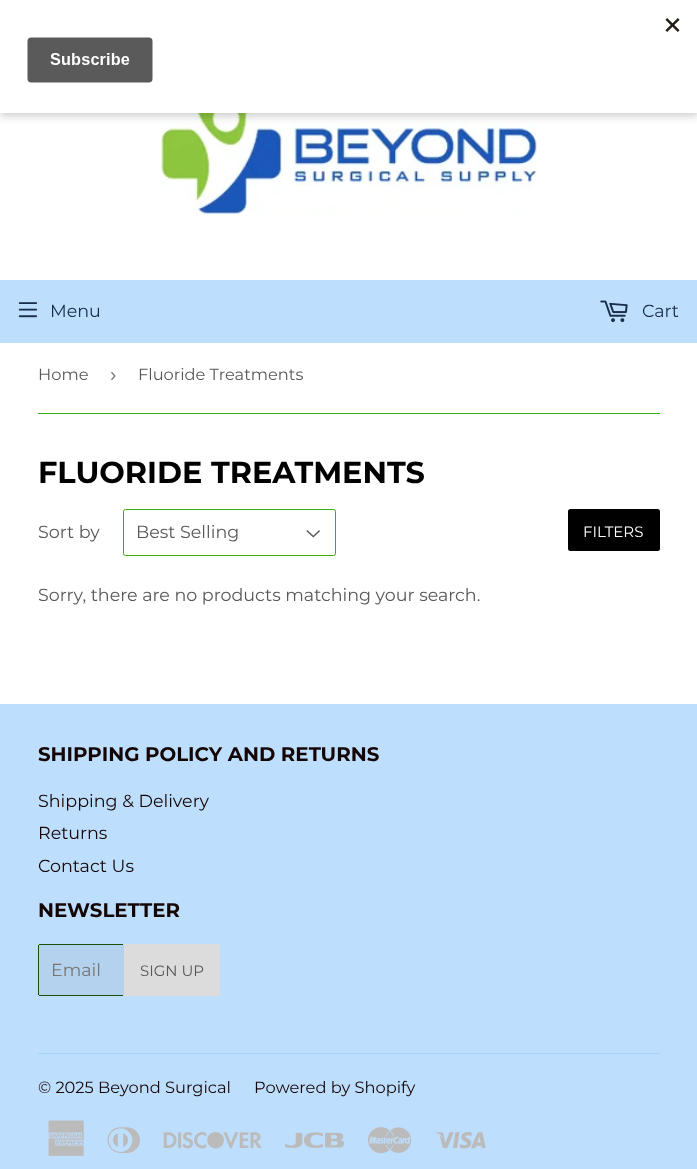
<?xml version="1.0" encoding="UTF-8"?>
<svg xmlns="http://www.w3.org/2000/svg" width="697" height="1169">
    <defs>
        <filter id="blur1" x="-50%" y="-200%" width="200%" height="500%"><feGaussianBlur stdDeviation="4"/></filter>
    </defs>
    <rect width="100%" height="100%" fill="#FFFFFF"/>
    <image x="161" y="113" width="376" height="101" href="img_02.png"/>
    <rect x="0" y="4" width="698" height="112" fill="#000000" fill-opacity="0.2" filter="url(#blur1)"/>
    <rect x="0" y="0" width="697" height="113" fill="#FFFFFF"/>
    <image x="27" y="18" width="653" height="65" href="img_01.png"/>
    <rect x="0" y="280" width="697" height="63" fill="#BEDEFD"/>
    <image x="18" y="302" width="20" height="16" href="img_03.png"/>
    <text x="50" y="317" font-family="Montserrat" font-size="17.5" fill="#182E49">Menu</text>
    <image x="600" y="300" width="28" height="23" href="img_04.png"/>
    <text x="642" y="317" font-family="Montserrat" font-size="17.5" fill="#182E49">Cart</text>
    <rect x="38" y="413" width="622" height="1" fill="#3BAE0F"/>
    <text x="38" y="380" font-family="Montserrat" font-size="16.25" fill="#585858">Home</text>
    <text x="110" y="381" font-family="Liberation Sans" font-size="19" fill="#767676">›</text>
    <text x="138" y="380" font-family="Montserrat" font-size="16.25" fill="#585858">Fluoride Treatments</text>
    <text x="38" y="483" font-family="Montserrat" font-size="30.3" font-weight="700" fill="#000000">FLUORIDE TREATMENTS</text>
    <text x="38" y="538" font-family="Montserrat" font-size="17.5" fill="#585858">Sort by</text>
    <image x="306" y="530" width="14" height="8" href="img_05.png"/>
    <rect x="123.5" y="509.5" width="212" height="46" rx="2" fill="none" stroke="#3BAE0F"/>
    <text x="136" y="538" font-family="Montserrat" font-size="17.5" fill="#585858">Best Selling</text>
    <rect x="568" y="509" width="92" height="42" rx="2.5" fill="#000000"/>
    <text x="583" y="537" font-family="Montserrat" font-size="15" fill="#FFFFFF">FILTERS</text>
    <text x="38" y="601" font-family="Montserrat" font-size="17.5" fill="#585858">Sorry, there are no products matching your search.</text>
    <rect x="0" y="704" width="697" height="465" fill="#BEDEFD"/>
    <text x="38" y="761" font-family="Montserrat" font-size="19.8" font-weight="700" fill="#150606">SHIPPING POLICY AND RETURNS</text>
    <text font-family="Montserrat" font-size="17.5" fill="#150606">
        <tspan x="38" y="807">Shipping &amp; Delivery</tspan>
        <tspan x="38" y="839">Returns</tspan>
        <tspan x="38" y="872">Contact Us</tspan>
    </text>
    <text x="38" y="917" font-family="Montserrat" font-size="19.8" font-weight="700" fill="#150606">NEWSLETTER</text>
    <rect x="38" y="944" width="86" height="52" rx="2.5" fill="#B4D1ED"/>
    <rect x="39" y="944" width="84" height="1" fill="#1B5007"/>
    <rect x="39" y="995" width="84" height="1" fill="#1B5007"/>
    <rect x="38" y="945" width="1" height="50" fill="#1B5007"/>
    <text x="51" y="976" font-family="Montserrat" font-size="17.5" fill="#767676">Email</text>
    <path d="M 124 944 H 217.5 C 219 944 220 945 220 946.5 V 993.5 C 220 995 219 996 217.5 996 H 124 Z" fill="#DCDCDC"/>
    <text x="140" y="976" font-family="Montserrat" font-size="15" fill="#585858">SIGN UP</text>
    <rect x="38" y="1053" width="622" height="1" fill="#A5D1FC"/>
    <text x="38" y="1093" font-family="Montserrat" font-size="16.25" fill="#150606">© 2025 Beyond Surgical</text>
    <text x="254" y="1093" font-family="Montserrat" font-size="16.25" fill="#150606">Powered by Shopify</text>
    <image x="48" y="1120" width="36" height="36" href="img_06.png"/>
    <image x="107" y="1127" width="33" height="26" href="img_07.png"/>
    <image x="163" y="1132" width="99" height="17" href="img_08.png"/>
    <image x="285" y="1132" width="60" height="16" href="img_09.png"/>
    <image x="368" y="1127" width="44" height="27" href="img_10.png"/>
    <image x="435" y="1132" width="51" height="17" href="img_11.png"/>
</svg>
